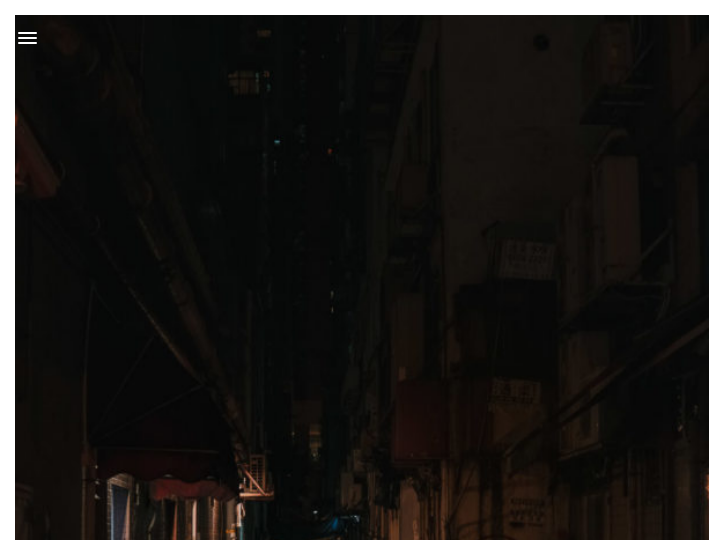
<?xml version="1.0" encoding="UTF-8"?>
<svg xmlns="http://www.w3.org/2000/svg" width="724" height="540">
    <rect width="100%" height="100%" fill="#FFFFFF"/>
    <image x="15" y="15" width="694" height="525" href="img_01.png"/>
    <rect x="18" y="32" width="19" height="2" rx="1" fill="#FEFEFE"/>
    <rect x="18" y="37" width="19" height="2" rx="1" fill="#FEFEFE"/>
    <rect x="18" y="42" width="19" height="2" rx="1" fill="#FEFEFE"/>
</svg>
